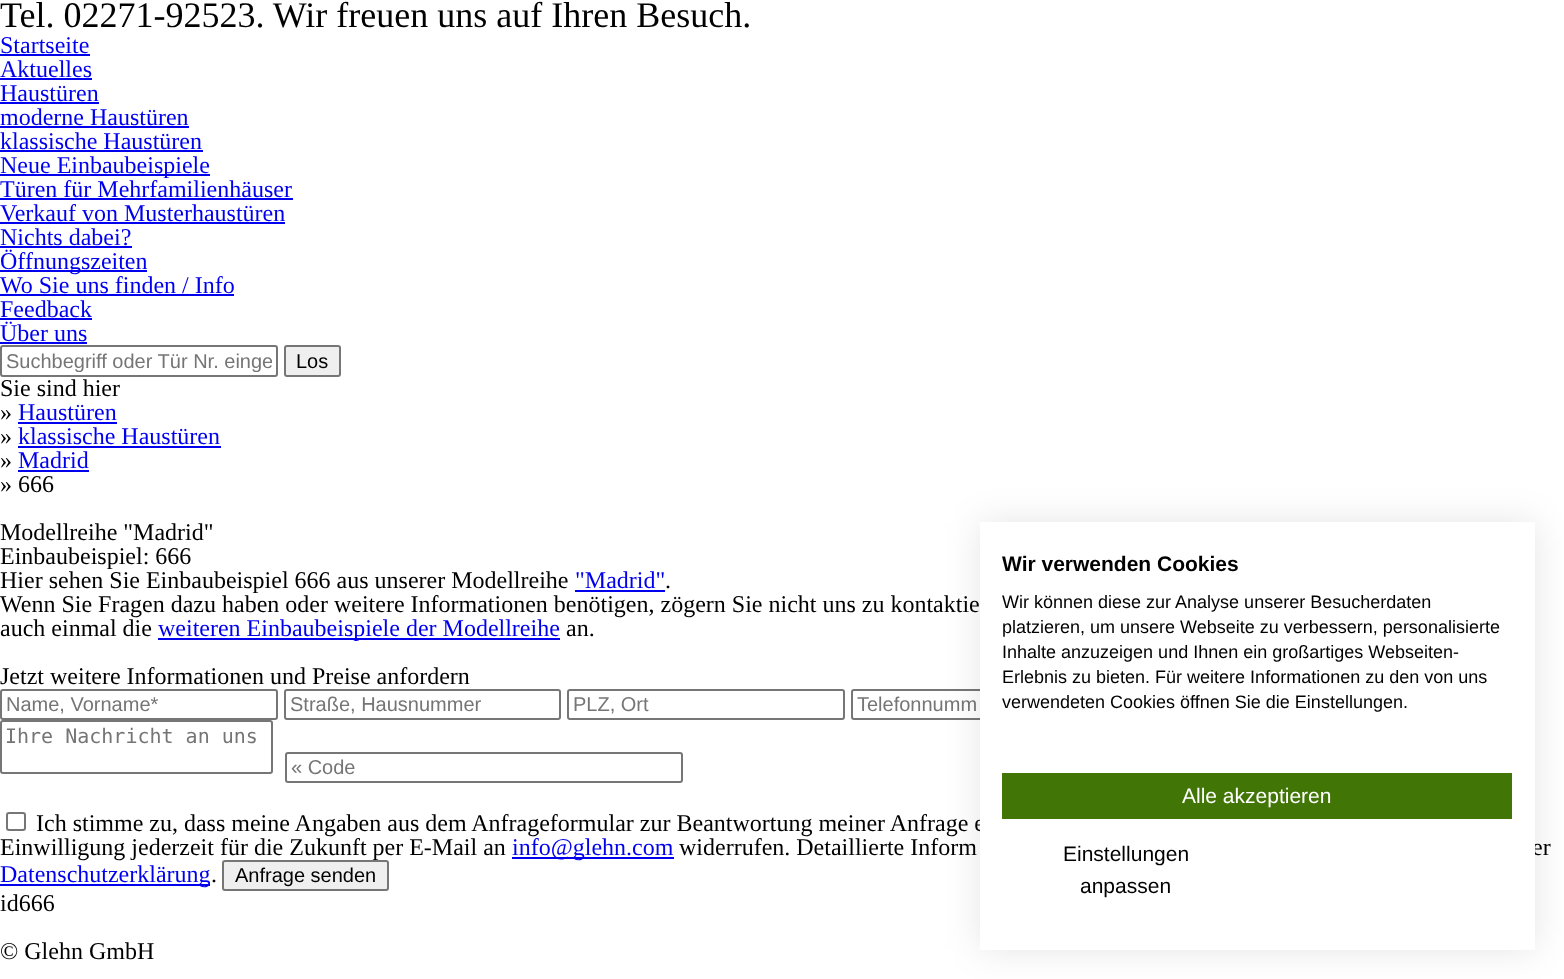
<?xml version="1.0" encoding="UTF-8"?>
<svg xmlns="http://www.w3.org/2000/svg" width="1564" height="979">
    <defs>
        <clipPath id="clip1"><rect x="6" y="350" width="266" height="22"/></clipPath>
        <filter id="blur1" x="-50%" y="-200%" width="200%" height="500%"><feGaussianBlur stdDeviation="18"/></filter>
    </defs>
    <rect width="100%" height="100%" fill="#FFFFFF"/>
    <text x="0" y="27" font-family="Liberation Serif" font-size="36" fill="#000000">Tel. 02271-92523. Wir freuen uns auf Ihren Besuch.</text>
    <text x="0" y="53" font-family="Liberation Serif" font-size="24" fill="#0000EE">Startseite</text>
    <rect x="0" y="54" width="90" height="2" fill="#0000EE"/>
    <text x="0" y="77" font-family="Liberation Serif" font-size="24" fill="#0000EE">Aktuelles</text>
    <rect x="0" y="78" width="92" height="2" fill="#0000EE"/>
    <text x="0" y="101" font-family="Liberation Serif" font-size="24" fill="#0000EE">Haustüren</text>
    <rect x="0" y="102" width="99" height="2" fill="#0000EE"/>
    <text x="0" y="125" font-family="Liberation Serif" font-size="24" fill="#0000EE">moderne Haustüren</text>
    <rect x="0" y="126" width="189" height="2" fill="#0000EE"/>
    <text x="0" y="149" font-family="Liberation Serif" font-size="24" fill="#0000EE">klassische Haustüren</text>
    <rect x="0" y="150" width="203" height="2" fill="#0000EE"/>
    <rect x="0" y="174" width="210" height="2" fill="#0000EE"/>
    <text font-family="Liberation Serif" font-size="24" fill="#0000EE">
        <tspan x="0" y="173">Neue Einbaubeispiele</tspan>
        <tspan x="0" y="197">Türen für Mehrfamilienhäuser</tspan>
    </text>
    <rect x="0" y="198" width="293" height="2" fill="#0000EE"/>
    <text x="0" y="221" font-family="Liberation Serif" font-size="24" fill="#0000EE">Verkauf von Musterhaustüren</text>
    <rect x="0" y="222" width="285" height="2" fill="#0000EE"/>
    <text x="0" y="245" font-family="Liberation Serif" font-size="24" fill="#0000EE">Nichts dabei?</text>
    <rect x="0" y="246" width="132" height="2" fill="#0000EE"/>
    <rect x="0" y="270" width="147" height="2" fill="#0000EE"/>
    <text font-family="Liberation Serif" font-size="24" fill="#0000EE">
        <tspan x="0" y="269">Öffnungszeiten</tspan>
        <tspan x="0" y="293">Wo Sie uns finden / Info</tspan>
    </text>
    <rect x="0" y="294" width="234" height="2" fill="#0000EE"/>
    <text x="0" y="317" font-family="Liberation Serif" font-size="24" fill="#0000EE">Feedback</text>
    <rect x="0" y="318" width="92" height="2" fill="#0000EE"/>
    <text x="0" y="341" font-family="Liberation Serif" font-size="24" fill="#0000EE">Über uns</text>
    <rect x="0" y="342" width="87" height="2" fill="#0000EE"/>
    <rect x="1" y="346" width="276" height="30" rx="2" fill="none" stroke="#767676" stroke-width="2"/>
    <g clip-path="url(#clip1)">
        <text x="6" y="368" font-family="Liberation Sans" font-size="20" fill="#757575">Suchbegriff oder Tür Nr. einge</text>
    </g>
    <rect x="285" y="346" width="55" height="30" rx="2" fill="#EFEFEF" stroke="#767676" stroke-width="2"/>
    <text x="296" y="368" font-family="Liberation Sans" font-size="20" fill="#000000">Los</text>
    <text font-family="Liberation Serif" font-size="24" fill="#000000">
        <tspan x="0" y="396">Sie sind hier</tspan>
        <tspan x="0" y="420">»</tspan>
    </text>
    <text x="18" y="420" font-family="Liberation Serif" font-size="24" fill="#0000EE">Haustüren</text>
    <rect x="18" y="422" width="99" height="2" fill="#0000EE"/>
    <text x="0" y="444" font-family="Liberation Serif" font-size="24" fill="#000000">»</text>
    <text x="18" y="444" font-family="Liberation Serif" font-size="24" fill="#0000EE">klassische Haustüren</text>
    <rect x="18" y="446" width="203" height="2" fill="#0000EE"/>
    <text x="0" y="468" font-family="Liberation Serif" font-size="24" fill="#000000">»</text>
    <text x="18" y="468" font-family="Liberation Serif" font-size="24" fill="#0000EE">Madrid</text>
    <rect x="18" y="470" width="71" height="2" fill="#0000EE"/>
    <text x="0" y="492" font-family="Liberation Serif" font-size="24" fill="#000000">» 666</text>
    <text font-family="Liberation Serif" font-size="24" fill="#000000">
        <tspan x="0" y="540">Modellreihe "Madrid"</tspan>
        <tspan x="0" y="564">Einbaubeispiel: 666</tspan>
        <tspan x="0" y="588">Hier sehen Sie Einbaubeispiel 666 aus unserer Modellreihe</tspan>
    </text>
    <text x="575" y="588" font-family="Liberation Serif" font-size="24" fill="#0000EE">"Madrid"</text>
    <rect x="575" y="590" width="90" height="2" fill="#0000EE"/>
    <text x="665" y="588" font-family="Liberation Serif" font-size="24" fill="#000000">.</text>
    <text font-family="Liberation Serif" font-size="24" fill="#000000">
        <tspan x="0" y="612">Wenn Sie Fragen dazu haben oder weitere Informationen benötigen, zögern Sie nicht uns zu kontaktie</tspan>
        <tspan x="0" y="636">auch einmal die</tspan>
    </text>
    <rect x="158" y="638" width="402" height="2" fill="#0000EE"/>
    <text x="158" y="636" font-family="Liberation Serif" font-size="24" fill="#0000EE">weiteren Einbaubeispiele der Modellreihe</text>
    <text x="566" y="636" font-family="Liberation Serif" font-size="24" fill="#000000">an.</text>
    <text x="0" y="684" font-family="Liberation Serif" font-size="24" fill="#000000">Jetzt weitere Informationen und Preise anfordern</text>
    <rect x="1" y="690" width="276" height="29" rx="2" fill="none" stroke="#767676" stroke-width="2"/>
    <text x="6" y="711" font-family="Liberation Sans" font-size="20" fill="#757575">Name, Vorname*</text>
    <rect x="285" y="690" width="275" height="29" rx="2" fill="none" stroke="#767676" stroke-width="2"/>
    <text x="290" y="711" font-family="Liberation Sans" font-size="20" fill="#757575">Straße, Hausnummer</text>
    <rect x="568" y="690" width="276" height="29" rx="2" fill="none" stroke="#767676" stroke-width="2"/>
    <text x="573" y="711" font-family="Liberation Sans" font-size="20" fill="#757575">PLZ, Ort</text>
    <rect x="852" y="690" width="275" height="29" rx="2" fill="none" stroke="#767676" stroke-width="2"/>
    <text x="857" y="711" font-family="Liberation Sans" font-size="20" fill="#757575">Telefonnumm</text>
    <rect x="1" y="721" width="271" height="52" rx="2" fill="none" stroke="#767676" stroke-width="2"/>
    <text x="5" y="743" font-family="DejaVu Sans Mono" font-size="20" fill="#757575">Ihre Nachricht an uns</text>
    <rect x="286" y="753" width="396" height="29" rx="2" fill="none" stroke="#767676" stroke-width="2"/>
    <text x="291" y="774" font-family="Liberation Sans" font-size="20" fill="#757575">« Code</text>
    <rect x="7" y="813" width="18" height="17" rx="2" fill="none" stroke="#767676" stroke-width="2"/>
    <text x="36" y="831" font-family="Liberation Serif" font-size="24" fill="#000000">Ich stimme zu, dass meine Angaben aus dem Anfrageformular zur Beantwortung meiner Anfrage e</text>
    <text x="0" y="855" font-family="Liberation Serif" font-size="24" fill="#000000">Einwilligung jederzeit für die Zukunft per E-Mail an</text>
    <rect x="512" y="857" width="162" height="2" fill="#0000EE"/>
    <text x="512" y="855" font-family="Liberation Serif" font-size="24" fill="#0000EE">info@glehn.com</text>
    <text x="679" y="855" font-family="Liberation Serif" font-size="24" fill="#000000">widerrufen. Detaillierte Inform</text>
    <text x="1532" y="855" font-family="Liberation Serif" font-size="24" fill="#000000">er</text>
    <rect x="0" y="884" width="210" height="2" fill="#0000EE"/>
    <text x="0" y="882" font-family="Liberation Serif" font-size="24" fill="#0000EE">Datenschutzerklärung</text>
    <text x="211" y="882" font-family="Liberation Serif" font-size="24" fill="#000000">.</text>
    <rect x="223" y="861" width="165" height="29" rx="2" fill="#EFEFEF" stroke="#767676" stroke-width="2"/>
    <text x="235" y="882" font-family="Liberation Sans" font-size="20" fill="#000000">Anfrage senden</text>
    <text x="0" y="911" font-family="Liberation Serif" font-size="24" fill="#000000">id666</text>
    <text x="0" y="959" font-family="Liberation Serif" font-size="24" fill="#000000">© Glehn GmbH</text>
    <rect x="980" y="522" width="555" height="428" fill="#000000" fill-opacity="0.1" filter="url(#blur1)"/>
    <rect x="980" y="522" width="555" height="428" fill="#FFFFFF"/>
    <text x="1002" y="571" font-family="Liberation Sans" font-size="21" font-weight="700" fill="#000000">Wir verwenden Cookies</text>
    <text font-family="Liberation Sans" font-size="18" fill="#000000">
        <tspan x="1002" y="608">Wir können diese zur Analyse unserer Besucherdaten</tspan>
        <tspan x="1002" y="633">platzieren, um unsere Webseite zu verbessern, personalisierte</tspan>
        <tspan x="1002" y="658">Inhalte anzuzeigen und Ihnen ein großartiges Webseiten-</tspan>
        <tspan x="1002" y="683">Erlebnis zu bieten. Für weitere Informationen zu den von uns</tspan>
        <tspan x="1002" y="708">verwendeten Cookies öffnen Sie die Einstellungen.</tspan>
    </text>
    <rect x="1002" y="773" width="510" height="46" fill="#417505"/>
    <text x="1182" y="803" font-family="Liberation Sans" font-size="21" fill="#FFFFFF">Alle akzeptieren</text>
    <text x="1063" y="861" font-family="Liberation Sans" font-size="21" fill="#000000">Einstellungen</text>
    <text x="1080" y="893" font-family="Liberation Sans" font-size="21" fill="#000000">anpassen</text>
</svg>
